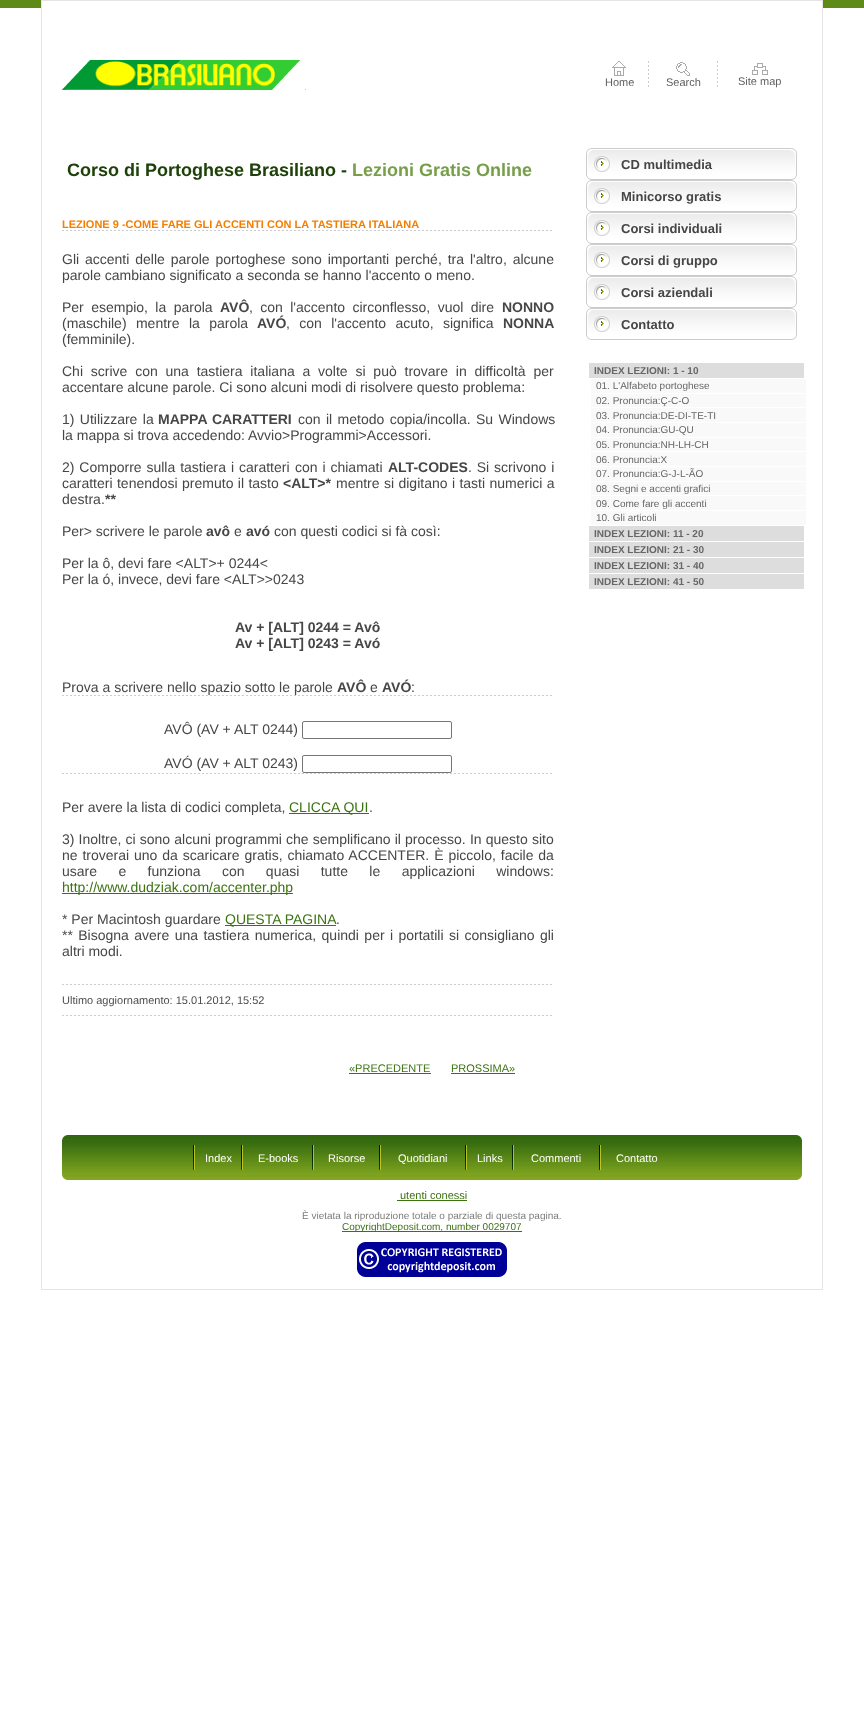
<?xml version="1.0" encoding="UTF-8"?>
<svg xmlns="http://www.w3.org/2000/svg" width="864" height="1726">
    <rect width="100%" height="100%" fill="#FFFFFF"/>
    <rect x="0" y="0" width="864" height="8" fill="#5E8B18"/>
    <rect x="42" y="1" width="780" height="7" fill="#FFFFFF"/>
    <rect x="41.5" y="0.5" width="781" height="1289" fill="none" stroke="#E5E5E5"/>
    <image x="62" y="60" width="244" height="30" href="img_01.png"/>
    <image x="612" y="61" width="14" height="15" href="img_02.png"/>
    <text x="605" y="86" font-family="Liberation Sans" font-size="11" fill="#5F5F5F">Home</text>
    <image x="648" y="61" width="1" height="26" href="img_03.png"/>
    <image x="676" y="62" width="14" height="14" href="img_04.png"/>
    <text x="666" y="86" font-family="Liberation Sans" font-size="11" fill="#5F5F5F">Search</text>
    <image x="717" y="61" width="1" height="26" href="img_03.png"/>
    <image x="752" y="63" width="16" height="12" href="img_05.png"/>
    <text x="738" y="85" font-family="Liberation Sans" font-size="11" fill="#5F5F5F">Site map</text>
    <text x="67" y="176" font-family="Liberation Sans" font-size="18" font-weight="700" fill="#1E4009">Corso di Portoghese Brasiliano -</text>
    <text x="352" y="176" font-family="Liberation Sans" font-size="18" font-weight="700" fill="#779F49">Lezioni Gratis Online</text>
    <text x="62" y="228" font-family="Liberation Sans" font-size="11" font-weight="700" fill="#F37F00">LEZIONE 9 -COME FARE GLI ACCENTI CON LA TASTIERA ITALIANA</text>
    <image x="62" y="230" width="490" height="1" href="img_06.png"/>
    <text font-family="Liberation Sans" font-size="14" fill="#464646">
        <tspan x="62" y="264" word-spacing="2">Gli accenti delle parole portoghese sono importanti perché, tra l'altro, alcune</tspan>
        <tspan x="62" y="280">parole cambiano significato a seconda se hanno l'accento o meno.</tspan>
    </text>
    <text x="62" y="312" word-spacing="3.5" font-family="Liberation Sans" font-size="14" fill="#464646">Per esempio, la parola</text>
    <text x="220" y="312" font-family="Liberation Sans" font-size="14" font-weight="700" fill="#464646">AVÔ</text>
    <text x="249" y="312" word-spacing="3.5" font-family="Liberation Sans" font-size="14" fill="#464646">, con l'accento circonflesso, vuol dire</text>
    <text x="502" y="312" font-family="Liberation Sans" font-size="14" font-weight="700" fill="#464646">NONNO</text>
    <text x="62" y="328" word-spacing="5.5" font-family="Liberation Sans" font-size="14" fill="#464646">(maschile) mentre la parola</text>
    <text x="257" y="328" font-family="Liberation Sans" font-size="14" font-weight="700" fill="#464646">AVÓ</text>
    <text x="286" y="328" word-spacing="5.5" font-family="Liberation Sans" font-size="14" fill="#464646">, con l'accento acuto, significa</text>
    <text x="503" y="328" font-family="Liberation Sans" font-size="14" font-weight="700" fill="#464646">NONNA</text>
    <text x="62" y="344" font-family="Liberation Sans" font-size="14" fill="#464646">(femminile).</text>
    <text font-family="Liberation Sans" font-size="14" fill="#464646">
        <tspan x="62" y="376" word-spacing="3.9">Chi scrive con una tastiera italiana a volte si può trovare in difficoltà per</tspan>
        <tspan x="62" y="392">accentare alcune parole. Ci sono alcuni modi di risolvere questo problema:</tspan>
    </text>
    <text x="62" y="424" word-spacing="1.5" font-family="Liberation Sans" font-size="14" fill="#464646">1) Utilizzare la</text>
    <text x="158" y="424" word-spacing="1" font-family="Liberation Sans" font-size="14" font-weight="700" fill="#464646">MAPPA CARATTERI</text>
    <text x="298" y="424" word-spacing="1.5" font-family="Liberation Sans" font-size="14" fill="#464646">con il metodo copia/incolla. Su Windows</text>
    <text x="62" y="440" font-family="Liberation Sans" font-size="14" fill="#464646">la mappa si trova accedendo: Avvio&gt;Programmi&gt;Accessori.</text>
    <text x="62" y="472" word-spacing="1" font-family="Liberation Sans" font-size="14" fill="#464646">2) Comporre sulla tastiera i caratteri</text>
    <text x="295" y="472" word-spacing="1" font-family="Liberation Sans" font-size="14" fill="#464646">con i chiamati</text>
    <text x="388" y="472" font-family="Liberation Sans" font-size="14" font-weight="700" fill="#464646">ALT-CODES</text>
    <text x="468" y="472" word-spacing="1" font-family="Liberation Sans" font-size="14" fill="#464646">. Si scrivono i</text>
    <text x="62" y="488" word-spacing="0.5" font-family="Liberation Sans" font-size="14" fill="#464646">caratteri tenendosi premuto il tasto</text>
    <text x="283" y="488" font-family="Liberation Sans" font-size="14" font-weight="700" fill="#464646">&lt;ALT&gt;*</text>
    <text x="336" y="488" word-spacing="0.5" font-family="Liberation Sans" font-size="14" fill="#464646">mentre si digitano i tasti numerici a</text>
    <text x="62" y="504" font-family="Liberation Sans" font-size="14" fill="#464646">destra.</text>
    <text x="105" y="504" font-family="Liberation Sans" font-size="14" font-weight="700" fill="#464646">**</text>
    <text x="62" y="536" font-family="Liberation Sans" font-size="14" fill="#464646">Per&gt; scrivere le parole</text>
    <text x="206" y="536" font-family="Liberation Sans" font-size="14" font-weight="700" fill="#464646">avô</text>
    <text x="234" y="536" font-family="Liberation Sans" font-size="14" fill="#464646">e</text>
    <text x="246" y="536" font-family="Liberation Sans" font-size="14" font-weight="700" fill="#464646">avó</text>
    <text x="274" y="536" font-family="Liberation Sans" font-size="14" fill="#464646">con questi codici si fà così:</text>
    <text font-family="Liberation Sans" font-size="14" fill="#464646">
        <tspan x="62" y="568">Per la ô, devi fare &lt;ALT&gt;+ 0244&lt;</tspan>
        <tspan x="62" y="584">Per la ó, invece, devi fare &lt;ALT&gt;&gt;0243</tspan>
    </text>
    <text font-family="Liberation Sans" font-size="14" font-weight="700" fill="#464646">
        <tspan x="235" y="632">Av + [ALT] 0244 = Avô</tspan>
        <tspan x="235" y="648">Av + [ALT] 0243 = Avó</tspan>
    </text>
    <text x="62" y="692" font-family="Liberation Sans" font-size="14" fill="#464646">Prova a scrivere nello spazio sotto le parole</text>
    <text x="337" y="692" font-family="Liberation Sans" font-size="14" font-weight="700" fill="#464646">AVÔ</text>
    <text x="370" y="692" font-family="Liberation Sans" font-size="14" fill="#464646">e</text>
    <text x="382" y="692" font-family="Liberation Sans" font-size="14" font-weight="700" fill="#464646">AVÓ</text>
    <text x="411" y="692" font-family="Liberation Sans" font-size="14" fill="#464646">:</text>
    <image x="62" y="695" width="490" height="1" href="img_06.png"/>
    <text x="164" y="734" font-family="Liberation Sans" font-size="14" fill="#464646">AVÔ (AV + ALT 0244)</text>
    <rect x="302.5" y="721.5" width="149" height="17" rx="1.5" fill="none" stroke="#767676"/>
    <text x="164" y="768" font-family="Liberation Sans" font-size="14" fill="#464646">AVÓ (AV + ALT 0243)</text>
    <rect x="302.5" y="755.5" width="149" height="17" rx="1.5" fill="none" stroke="#767676"/>
    <image x="62" y="773" width="490" height="1" href="img_06.png"/>
    <text x="62" y="812" font-family="Liberation Sans" font-size="14" fill="#464646">Per avere la lista di codici completa,</text>
    <rect x="289" y="813" width="80" height="1" fill="#3B7310"/>
    <text x="289" y="812" font-family="Liberation Sans" font-size="14" fill="#3B7310">CLICCA QUI</text>
    <text x="369" y="812" font-family="Liberation Sans" font-size="14" fill="#464646">.</text>
    <text font-family="Liberation Sans" font-size="14" fill="#464646">
        <tspan x="62" y="844" word-spacing="0.25">3) Inoltre, ci sono alcuni programmi che semplificano il processo. In questo sito</tspan>
        <tspan x="62" y="860" word-spacing="1">ne troverai uno da scaricare gratis, chiamato ACCENTER. È piccolo, facile da</tspan>
        <tspan x="62" y="876" word-spacing="17.5">usare e funziona con quasi tutte le applicazioni windows:</tspan>
    </text>
    <rect x="62" y="893" width="231" height="1" fill="#3B7310"/>
    <text x="62" y="892" font-family="Liberation Sans" font-size="14" fill="#3B7310">http://www.dudziak.com/accenter.php</text>
    <text x="62" y="924" font-family="Liberation Sans" font-size="14" fill="#464646">* Per Macintosh guardare</text>
    <rect x="225" y="925" width="111" height="1" fill="#3B7310"/>
    <text x="225" y="924" font-family="Liberation Sans" font-size="14" fill="#3B7310">QUESTA PAGINA</text>
    <text x="336" y="924" font-family="Liberation Sans" font-size="14" fill="#464646">.</text>
    <text font-family="Liberation Sans" font-size="14" fill="#464646">
        <tspan x="62" y="940" word-spacing="1.5">** Bisogna avere una tastiera numerica, quindi per i portatili si consigliano gli</tspan>
        <tspan x="62" y="956">altri modi.</tspan>
    </text>
    <image x="62" y="984" width="490" height="1" href="img_06.png"/>
    <text x="62" y="1004" font-family="Liberation Sans" font-size="11" fill="#4C4C4C">Ultimo aggiornamento: 15.01.2012, 15:52</text>
    <image x="62" y="1015" width="490" height="1" href="img_06.png"/>
    <image x="586" y="148" width="211" height="32" href="img_07.png"/>
    <text x="621" y="169" font-family="Liberation Sans" font-size="13" font-weight="700" fill="#464646">CD multimedia</text>
    <image x="586" y="180" width="211" height="32" href="img_07.png"/>
    <text x="621" y="201" font-family="Liberation Sans" font-size="13" font-weight="700" fill="#464646">Minicorso gratis</text>
    <image x="586" y="212" width="211" height="32" href="img_07.png"/>
    <text x="621" y="233" font-family="Liberation Sans" font-size="13" font-weight="700" fill="#464646">Corsi individuali</text>
    <image x="586" y="244" width="211" height="32" href="img_07.png"/>
    <text x="621" y="265" font-family="Liberation Sans" font-size="13" font-weight="700" fill="#464646">Corsi di gruppo</text>
    <image x="586" y="276" width="211" height="32" href="img_07.png"/>
    <text x="621" y="297" font-family="Liberation Sans" font-size="13" font-weight="700" fill="#464646">Corsi aziendali</text>
    <image x="586" y="308" width="211" height="32" href="img_07.png"/>
    <text x="621" y="329" font-family="Liberation Sans" font-size="13" font-weight="700" fill="#464646">Contatto</text>
    <rect x="589" y="363" width="215" height="15" fill="#DDDDDD"/>
    <text x="594" y="374" font-family="Liberation Sans" font-size="10" font-weight="700" fill="#666666">INDEX LEZIONI: 1 - 10</text>
    <rect x="591" y="379" width="215" height="14" fill="#F9F9F9"/>
    <text x="596" y="389" font-family="Liberation Sans" font-size="10" fill="#666666">01. L'Alfabeto portoghese</text>
    <rect x="591" y="394" width="215" height="13" fill="#F9F9F9"/>
    <text x="596" y="404" font-family="Liberation Sans" font-size="10" fill="#666666">02. Pronuncia:Ç-C-O</text>
    <rect x="591" y="408" width="215" height="14" fill="#F9F9F9"/>
    <text x="596" y="419" font-family="Liberation Sans" font-size="10" fill="#666666">03. Pronuncia:DE-DI-TE-TI</text>
    <rect x="591" y="423" width="215" height="14" fill="#F9F9F9"/>
    <text x="596" y="433" font-family="Liberation Sans" font-size="10" fill="#666666">04. Pronuncia:GU-QU</text>
    <rect x="591" y="438" width="215" height="13" fill="#F9F9F9"/>
    <text x="596" y="448" font-family="Liberation Sans" font-size="10" fill="#666666">05. Pronuncia:NH-LH-CH</text>
    <rect x="591" y="452" width="215" height="14" fill="#F9F9F9"/>
    <text x="596" y="463" font-family="Liberation Sans" font-size="10" fill="#666666">06. Pronuncia:X</text>
    <rect x="591" y="467" width="215" height="14" fill="#F9F9F9"/>
    <text x="596" y="477" font-family="Liberation Sans" font-size="10" fill="#666666">07. Pronuncia:G-J-L-ÃO</text>
    <rect x="591" y="482" width="215" height="13" fill="#F9F9F9"/>
    <text x="596" y="492" font-family="Liberation Sans" font-size="10" fill="#666666">08. Segni e accenti grafici</text>
    <rect x="591" y="496" width="215" height="14" fill="#F9F9F9"/>
    <text x="596" y="507" font-family="Liberation Sans" font-size="10" fill="#666666">09. Come fare gli accenti</text>
    <rect x="591" y="511" width="215" height="14" fill="#F9F9F9"/>
    <text x="596" y="521" font-family="Liberation Sans" font-size="10" fill="#666666">10. Gli articoli</text>
    <rect x="589" y="526" width="215" height="15" fill="#DDDDDD"/>
    <text x="594" y="537" font-family="Liberation Sans" font-size="10" font-weight="700" fill="#666666">INDEX LEZIONI: 11 - 20</text>
    <rect x="589" y="542" width="215" height="15" fill="#DDDDDD"/>
    <text x="594" y="553" font-family="Liberation Sans" font-size="10" font-weight="700" fill="#666666">INDEX LEZIONI: 21 - 30</text>
    <rect x="589" y="558" width="215" height="15" fill="#DDDDDD"/>
    <text x="594" y="569" font-family="Liberation Sans" font-size="10" font-weight="700" fill="#666666">INDEX LEZIONI: 31 - 40</text>
    <rect x="589" y="574" width="215" height="15" fill="#DDDDDD"/>
    <text x="594" y="585" font-family="Liberation Sans" font-size="10" font-weight="700" fill="#666666">INDEX LEZIONI: 41 - 50</text>
    <text x="349" y="1072" font-family="Liberation Sans" font-size="11" fill="#3B7310">«PRECEDENTE</text>
    <rect x="349" y="1073" width="82" height="1" fill="#3B7310"/>
    <text x="451" y="1072" font-family="Liberation Sans" font-size="11" fill="#3B7310">PROSSIMA»</text>
    <rect x="451" y="1073" width="64" height="1" fill="#3B7310"/>
    <image x="62" y="1135" width="740" height="45" href="img_08.png"/>
    <image x="193" y="1145" width="2" height="25" href="img_09.png"/>
    <text x="205" y="1162" font-family="Liberation Sans" font-size="11" fill="#FFFFFF">Index</text>
    <image x="241" y="1145" width="2" height="25" href="img_09.png"/>
    <text x="258" y="1162" font-family="Liberation Sans" font-size="11" fill="#FFFFFF">E-books</text>
    <image x="312" y="1145" width="2" height="25" href="img_09.png"/>
    <text x="328" y="1162" font-family="Liberation Sans" font-size="11" fill="#FFFFFF">Risorse</text>
    <image x="379" y="1145" width="2" height="25" href="img_09.png"/>
    <text x="398" y="1162" font-family="Liberation Sans" font-size="11" fill="#FFFFFF">Quotidiani</text>
    <image x="465" y="1145" width="2" height="25" href="img_09.png"/>
    <text x="477" y="1162" font-family="Liberation Sans" font-size="11" fill="#FFFFFF">Links</text>
    <image x="512" y="1145" width="2" height="25" href="img_09.png"/>
    <text x="531" y="1162" font-family="Liberation Sans" font-size="11" fill="#FFFFFF">Commenti</text>
    <image x="599" y="1145" width="2" height="25" href="img_09.png"/>
    <text x="616" y="1162" font-family="Liberation Sans" font-size="11" fill="#FFFFFF">Contatto</text>
    <text x="400" y="1199" font-family="Liberation Sans" font-size="11" fill="#3B7310">utenti conessi</text>
    <rect x="397" y="1200" width="70" height="1" fill="#3B7310"/>
    <text x="302" y="1219" font-family="Liberation Sans" font-size="10" fill="#7D7D7D">È vietata la riproduzione totale o parziale di questa pagina.</text>
    <rect x="342" y="1231" width="180" height="1" fill="#3B7310"/>
    <text x="342" y="1230" font-family="Liberation Sans" font-size="10" fill="#3B7310">CopyrightDeposit.com, number 0029707</text>
    <image x="357" y="1242" width="150" height="35" href="img_10.png"/>
</svg>
